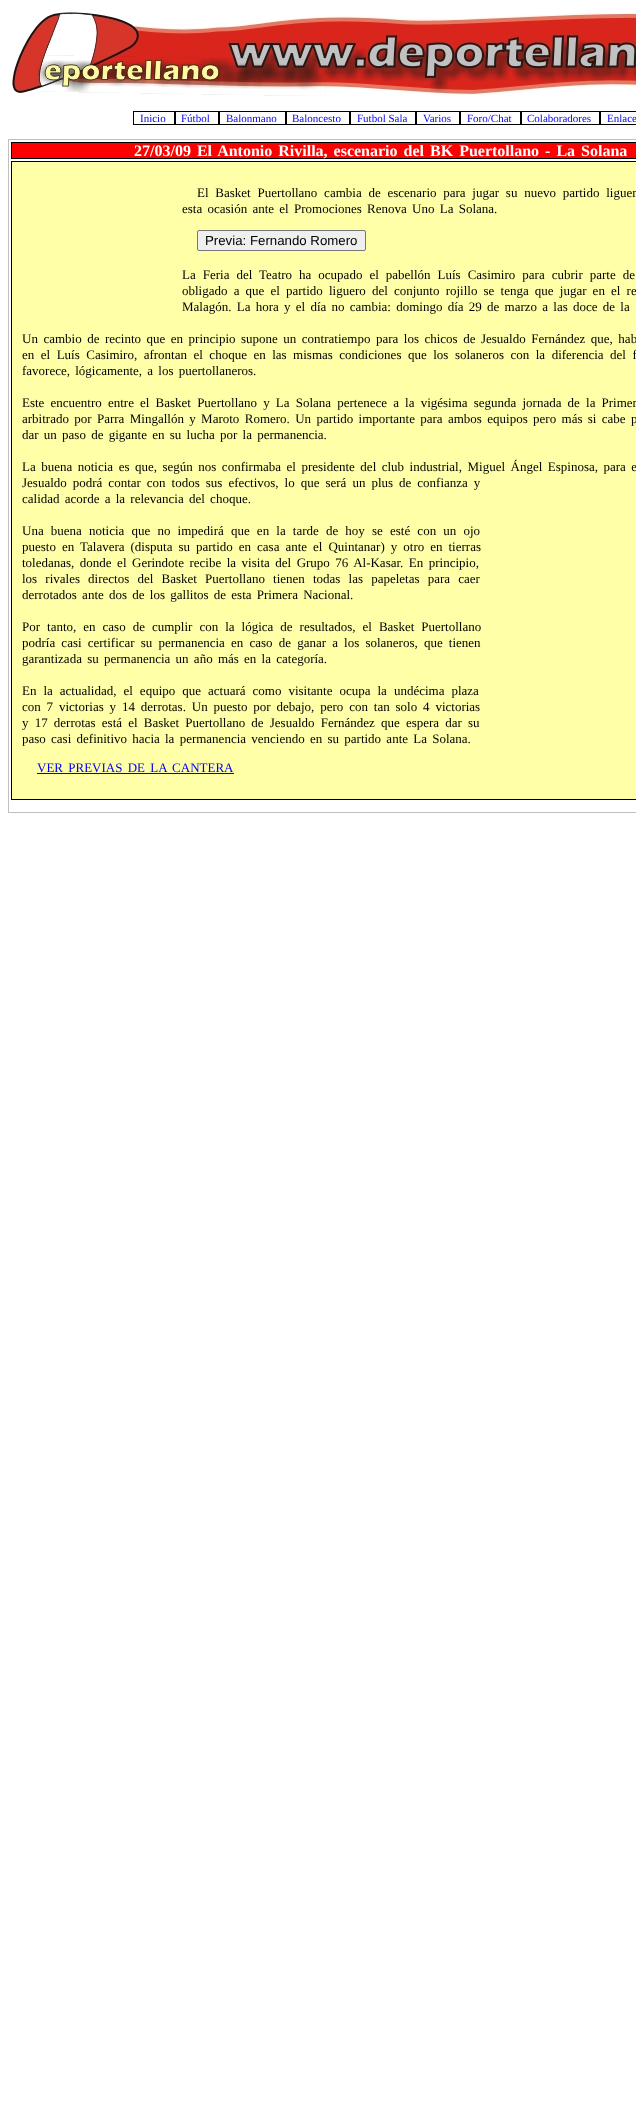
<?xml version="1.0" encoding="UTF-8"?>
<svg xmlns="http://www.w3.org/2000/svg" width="636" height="2109">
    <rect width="100%" height="100%" fill="#FFFFFF"/>
    <image x="12" y="12" width="624" height="84" href="img_01.png"/>
    <rect x="133.5" y="111.5" width="41" height="13" fill="none" stroke="#000000"/>
    <text x="140" y="122" font-family="Liberation Serif" font-size="11" fill="#0000EE">Inicio</text>
    <rect x="175.5" y="111.5" width="43" height="13" fill="none" stroke="#000000"/>
    <text x="181" y="122" font-family="Liberation Serif" font-size="11" fill="#0000EE">Fútbol</text>
    <rect x="219.5" y="111.5" width="66" height="13" fill="none" stroke="#000000"/>
    <text x="226" y="122" font-family="Liberation Serif" font-size="11" fill="#0000EE">Balonmano</text>
    <rect x="286.5" y="111.5" width="63" height="13" fill="none" stroke="#000000"/>
    <text x="292" y="122" font-family="Liberation Serif" font-size="11" fill="#0000EE">Baloncesto</text>
    <rect x="350.5" y="111.5" width="65" height="13" fill="none" stroke="#000000"/>
    <text x="357" y="122" font-family="Liberation Serif" font-size="11" fill="#0000EE">Futbol Sala</text>
    <rect x="416.5" y="111.5" width="43" height="13" fill="none" stroke="#000000"/>
    <text x="423" y="122" font-family="Liberation Serif" font-size="11" fill="#0000EE">Varios</text>
    <rect x="460.5" y="111.5" width="60" height="13" fill="none" stroke="#000000"/>
    <text x="467" y="122" font-family="Liberation Serif" font-size="11" fill="#0000EE">Foro/Chat</text>
    <rect x="521.5" y="111.5" width="78" height="13" fill="none" stroke="#000000"/>
    <text x="527" y="122" font-family="Liberation Serif" font-size="11" fill="#0000EE">Colaboradores</text>
    <rect x="600.5" y="111.5" width="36" height="13" fill="none" stroke="#000000"/>
    <text x="607" y="122" font-family="Liberation Serif" font-size="11" fill="#0000EE">Enlace</text>
    <rect x="8.5" y="139.5" width="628" height="673" fill="none" stroke="#C0C0C0"/>
    <rect x="11.5" y="142.5" width="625" height="16" fill="#FF0000" stroke="#000000"/>
    <text x="134" y="156" word-spacing="2" font-family="Liberation Serif" font-size="16" font-weight="700" fill="#FFFFFF">27/03/09 El Antonio Rivilla, escenario del BK Puertollano - La Solana</text>
    <rect x="11.5" y="161.5" width="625" height="638" fill="#FFFFA8" stroke="#000000"/>
    <text x="197" y="197" word-spacing="3.5" font-family="Liberation Serif" font-size="13" fill="#000000">El Basket Puertollano cambia de escenario para jugar su nuevo partido liguer</text>
    <text x="182" y="213" word-spacing="2" font-family="Liberation Serif" font-size="13" fill="#000000">esta ocasión ante el Promociones Renova Uno La Solana.</text>
    <rect x="197.5" y="230.5" width="168" height="20" rx="1.5" fill="#EFEFEF" stroke="#767676"/>
    <text x="205" y="245" font-family="Liberation Sans" font-size="13.25" fill="#000000">Previa: Fernando Romero</text>
    <text font-family="Liberation Serif" font-size="13" fill="#000000">
        <tspan x="182" y="279" word-spacing="3.75">La Feria del Teatro ha ocupado el pabellón Luís Casimiro para cubrir parte de</tspan>
        <tspan x="182" y="295" word-spacing="2.9">obligado a que el partido liguero del conjunto rojillo se tenga que jugar en el re</tspan>
        <tspan x="182" y="311" word-spacing="2">Malagón. La hora y el día no cambia: domingo día 29 de marzo a las doce de la</tspan>
    </text>
    <text font-family="Liberation Serif" font-size="13" fill="#000000">
        <tspan x="22" y="343" word-spacing="2.25">Un cambio de recinto que en principio supone un contratiempo para los chicos de Jesualdo Fernández que, hab</tspan>
        <tspan x="22" y="359" word-spacing="3.25">en el Luís Casimiro, afrontan el choque en las mismas condiciones que los solaneros con la diferencia del f</tspan>
        <tspan x="22" y="375" word-spacing="2">favorece, lógicamente, a los puertollaneros.</tspan>
    </text>
    <text font-family="Liberation Serif" font-size="13" fill="#000000">
        <tspan x="22" y="407" word-spacing="2.9">Este encuentro entre el Basket Puertollano y La Solana pertenece a la vigésima segunda jornada de la Primer</tspan>
        <tspan x="22" y="423" word-spacing="2.1">arbitrado por Parra Mingallón y Maroto Romero. Un partido importante para ambos equipos pero más si cabe p</tspan>
        <tspan x="22" y="439" word-spacing="2">dar un paso de gigante en su lucha por la permanencia.</tspan>
    </text>
    <text font-family="Liberation Serif" font-size="13" fill="#000000">
        <tspan x="22" y="471" word-spacing="2.25">La buena noticia es que, según nos confirmaba el presidente del club industrial, Miguel Ángel Espinosa, para e</tspan>
        <tspan x="22" y="487" word-spacing="2.75">Jesualdo podrá contar con todos sus efectivos, lo que será un plus de confianza y</tspan>
        <tspan x="22" y="503" word-spacing="2">calidad acorde a la relevancia del choque.</tspan>
    </text>
    <text font-family="Liberation Serif" font-size="13" fill="#000000">
        <tspan x="22" y="535" word-spacing="3.9">Una buena noticia que no impedirá que en la tarde de hoy se esté con un ojo</tspan>
        <tspan x="22" y="551" word-spacing="2.75">puesto en Talavera (disputa su partido en casa ante el Quintanar) y otro en tierras</tspan>
        <tspan x="22" y="567" word-spacing="2.25">toledanas, donde el Gerindote recibe la visita del Grupo 76 Al-Kasar. En principio,</tspan>
        <tspan x="22" y="583" word-spacing="4.9">los rivales directos del Basket Puertollano tienen todas las papeletas para caer</tspan>
        <tspan x="22" y="599" word-spacing="2">derrotados ante dos de los gallitos de esta Primera Nacional.</tspan>
    </text>
    <text font-family="Liberation Serif" font-size="13" fill="#000000">
        <tspan x="22" y="631" word-spacing="3.75">Por tanto, en caso de cumplir con la lógica de resultados, el Basket Puertollano</tspan>
        <tspan x="22" y="647" word-spacing="2.9">podría casi certificar su permanencia en caso de ganar a los solaneros, que tienen</tspan>
        <tspan x="22" y="663" word-spacing="2">garantizada su permanencia un año más en la categoría.</tspan>
    </text>
    <text font-family="Liberation Serif" font-size="13" fill="#000000">
        <tspan x="22" y="695" word-spacing="3.75">En la actualidad, el equipo que actuará como visitante ocupa la undécima plaza</tspan>
        <tspan x="22" y="711" word-spacing="2.6">con 7 victorias y 14 derrotas. Un puesto por debajo, pero con tan solo 4 victorias</tspan>
        <tspan x="22" y="727" word-spacing="2.9">y 17 derrotas está el Basket Puertollano de Jesualdo Fernández que espera dar su</tspan>
        <tspan x="22" y="743" word-spacing="2">paso casi definitivo hacia la permanencia venciendo en su partido ante La Solana.</tspan>
    </text>
    <text x="37" y="772" word-spacing="2" font-family="Liberation Serif" font-size="13" fill="#0000EE">VER PREVIAS DE LA CANTERA</text>
    <rect x="37" y="773" width="197" height="1" fill="#0000EE"/>
</svg>
